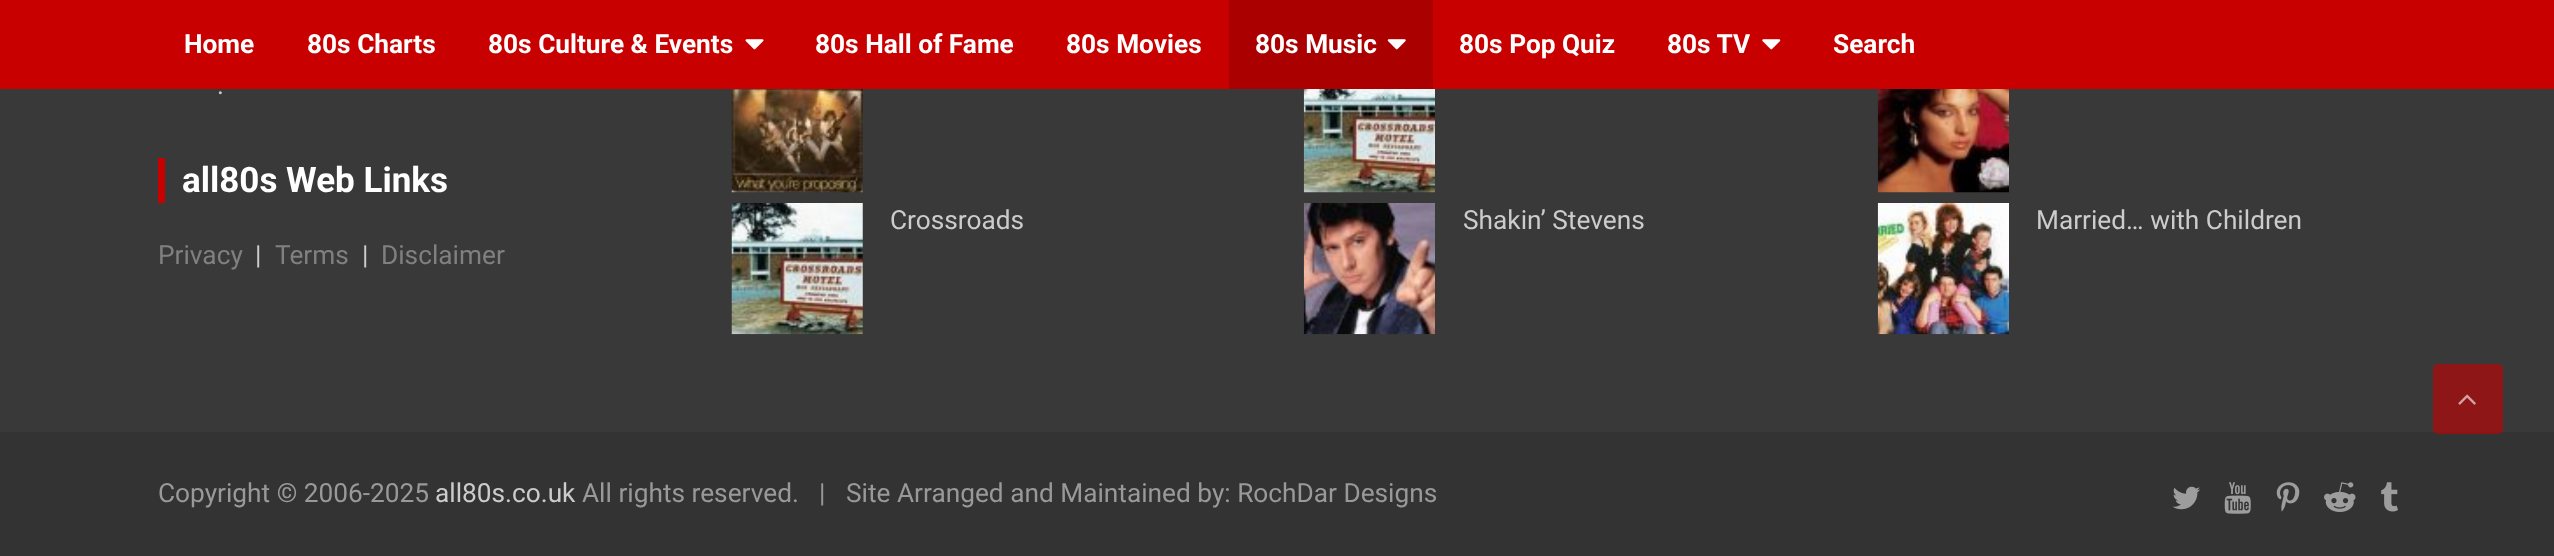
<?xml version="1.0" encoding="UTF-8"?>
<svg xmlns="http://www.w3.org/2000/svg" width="2554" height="556">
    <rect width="100%" height="100%" fill="#393939"/>
    <rect x="0" y="0" width="2554" height="89" fill="#C80000"/>
    <text x="184" y="53" font-family="Roboto" font-size="26.25" font-weight="700" fill="#FFFFFF">Home</text>
    <text x="307" y="53" font-family="Roboto" font-size="26.25" font-weight="700" fill="#FFFFFF">80s Charts</text>
    <text x="488" y="53" font-family="Roboto" font-size="26.25" font-weight="700" fill="#FFFFFF">80s Culture &amp; Events</text>
    <image x="745" y="39" width="19" height="11" href="img_01.png"/>
    <text x="815" y="53" font-family="Roboto" font-size="26.25" font-weight="700" fill="#FFFFFF">80s Hall of Fame</text>
    <text x="1066" y="53" font-family="Roboto" font-size="26.25" font-weight="700" fill="#FFFFFF">80s Movies</text>
    <rect x="1229" y="0" width="204" height="89" fill="#AA0000"/>
    <text x="1255" y="53" font-family="Roboto" font-size="26.25" font-weight="700" fill="#FFFFFF">80s Music</text>
    <image x="1387" y="39" width="19" height="11" href="img_02.png"/>
    <text x="1459" y="53" font-family="Roboto" font-size="26.25" font-weight="700" fill="#FFFFFF">80s Pop Quiz</text>
    <text x="1667" y="53" font-family="Roboto" font-size="26.25" font-weight="700" fill="#FFFFFF">80s TV</text>
    <image x="1762" y="39" width="19" height="11" href="img_03.png"/>
    <text x="1833" y="53" font-family="Roboto" font-size="26.25" font-weight="700" fill="#FFFFFF">Search</text>
    <text x="217" y="94" font-family="Roboto" font-size="26.25" fill="#CCCCCC">.</text>
    <rect x="158" y="158" width="7" height="45" fill="#C80000"/>
    <text x="182" y="192" font-family="Roboto" font-size="35" font-weight="700" fill="#FFFFFF">all80s Web Links</text>
    <text x="158" y="264" font-family="Roboto" font-size="26.25" fill="#808080">Privacy</text>
    <text x="255" y="264" font-family="Roboto" font-size="26.25" fill="#CCCCCC">|</text>
    <text x="275" y="264" font-family="Roboto" font-size="26.25" fill="#808080">Terms</text>
    <text x="362" y="264" font-family="Roboto" font-size="26.25" fill="#CCCCCC">|</text>
    <text x="381" y="264" font-family="Roboto" font-size="26.25" fill="#808080">Disclaimer</text>
    <image x="731" y="89" width="132" height="104" href="img_04.png"/>
    <image x="731" y="203" width="132" height="132" href="img_05.png"/>
    <text x="890" y="229" font-family="Roboto" font-size="26.25" fill="#CCCCCC">Crossroads</text>
    <image x="1303" y="89" width="132" height="104" href="img_06.png"/>
    <image x="1303" y="203" width="132" height="132" href="img_07.png"/>
    <text x="1463" y="229" font-family="Roboto" font-size="26.25" fill="#CCCCCC">Shakin’ Stevens</text>
    <image x="1877" y="89" width="132" height="104" href="img_08.png"/>
    <image x="1877" y="203" width="132" height="132" href="img_09.png"/>
    <text x="2036" y="229" font-family="Roboto" font-size="26.25" fill="#CCCCCC">Married… with Children</text>
    <rect x="0" y="432" width="2554" height="124" fill="#333333"/>
    <text x="158" y="502" font-family="Roboto" font-size="26.25" fill="#999999">Copyright © 2006-2025</text>
    <text x="435" y="502" font-family="Roboto" font-size="26.25" fill="#CCCCCC">all80s.co.uk</text>
    <text x="582" y="502" font-family="Roboto" font-size="26.25" fill="#999999">All rights reserved.</text>
    <text x="819" y="502" font-family="Roboto" font-size="26.25" fill="#999999">|</text>
    <text x="846" y="502" font-family="Roboto" font-size="26.25" fill="#999999">Site Arranged and Maintained by: RochDar Designs</text>
    <image x="2172" y="486" width="28" height="24" href="img_10.png"/>
    <image x="2224" y="482" width="27" height="32" href="img_11.png"/>
    <image x="2276" y="482" width="24" height="30" href="img_12.png"/>
    <image x="2324" y="482" width="32" height="30" href="img_13.png"/>
    <image x="2381" y="482" width="17" height="30" href="img_14.png"/>
    <rect x="2433" y="364" width="70" height="70" rx="5" fill="#C80000" fill-opacity="0.6"/>
    <image x="2458" y="394" width="18" height="11" href="img_15.png"/>
</svg>
